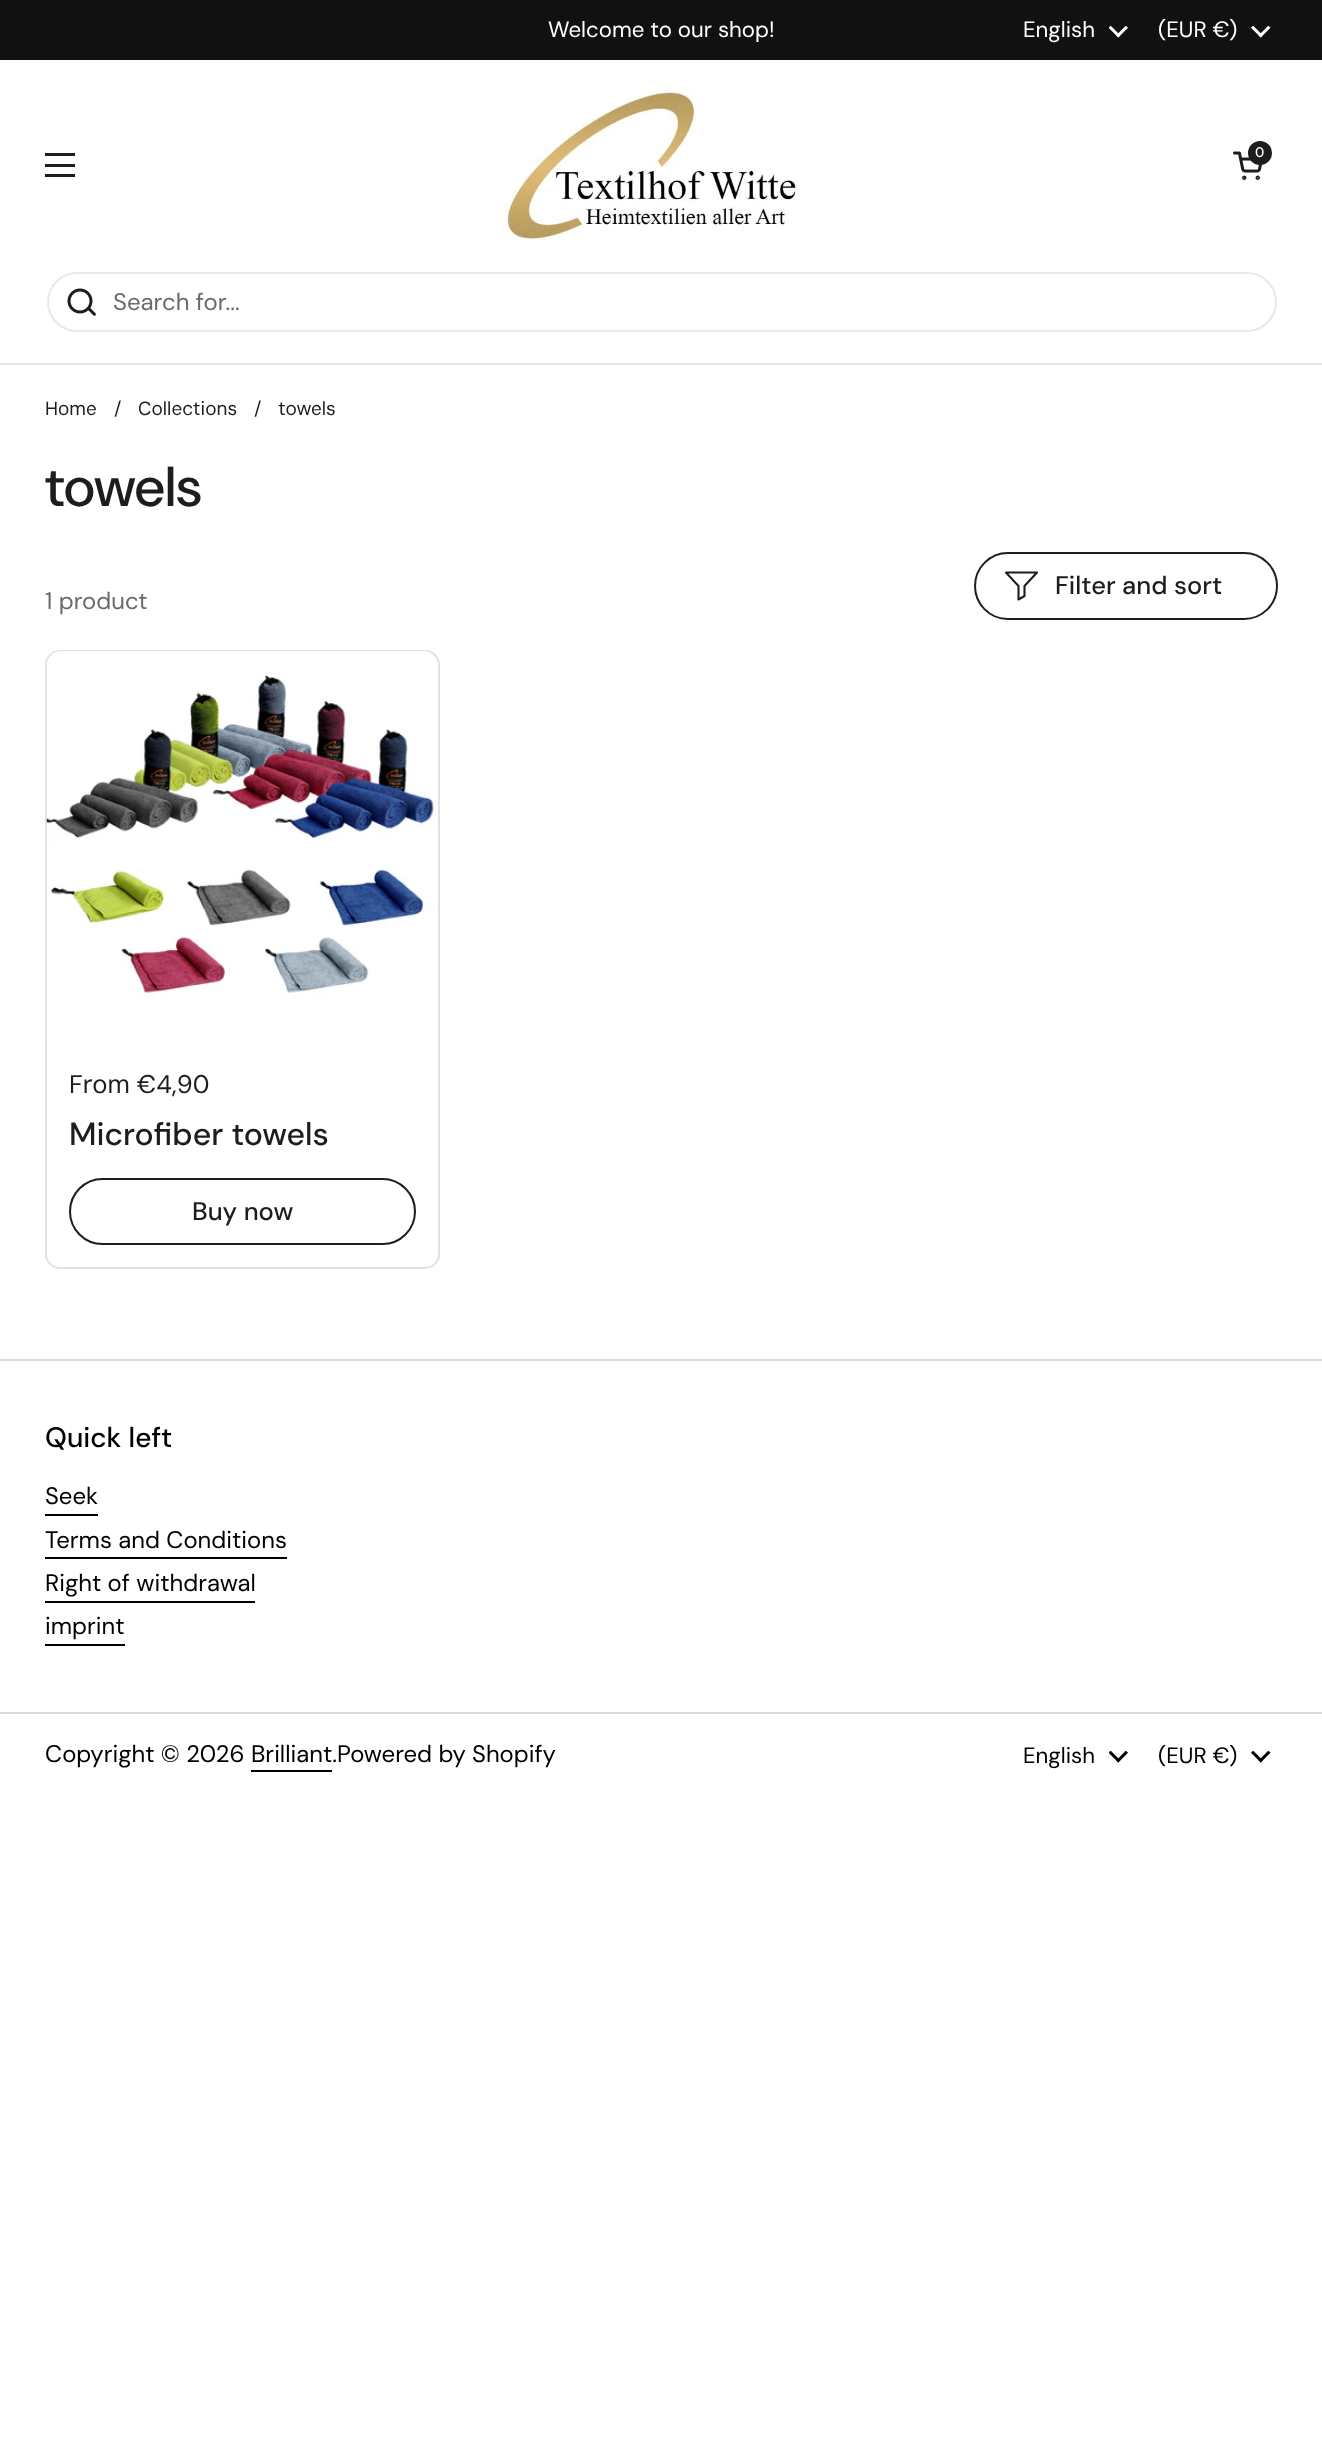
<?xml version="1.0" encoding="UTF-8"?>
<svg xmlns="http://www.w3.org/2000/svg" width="1322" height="2459">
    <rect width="100%" height="100%" fill="#FFFFFF"/>
    <rect x="0" y="0" width="1322" height="60" fill="#111111"/>
    <text x="548" y="37" font-family="DM Sans" font-size="22.25" fill="#FFFFFF">Welcome to our shop!</text>
    <text x="1023" y="37" font-family="DM Sans" font-size="22.25" fill="#FFFFFF">English</text>
    <image x="1109" y="26" width="19" height="12" href="img_01.png"/>
    <text x="1158" y="37" font-family="DM Sans" font-size="22.25" fill="#FFFFFF">(EUR €)</text>
    <image x="1251" y="26" width="20" height="12" href="img_02.png"/>
    <rect x="45" y="153" width="30" height="3" fill="#1D1D1D"/>
    <rect x="45" y="164" width="30" height="3" fill="#1D1D1D"/>
    <rect x="45" y="174" width="30" height="3" fill="#1D1D1D"/>
    <image x="505" y="90" width="293" height="150" href="img_03.png"/>
    <image x="1233" y="151" width="29" height="29" href="img_04.png"/>
    <circle cx="1260" cy="153" r="12" fill="#1D1D1D"/>
    <text x="1255" y="157" font-family="'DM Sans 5'" font-size="14" font-weight="500" fill="#FFFFFF">0</text>
    <rect x="0" y="363" width="1322" height="2" fill="#E8E8E8"/>
    <rect x="48" y="273" width="1228" height="58" rx="29" fill="none" stroke="#E8E8E8" stroke-width="2"/>
    <image x="67" y="288" width="29" height="28" href="img_05.png"/>
    <text x="113" y="310" font-family="'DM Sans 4'" font-size="24" fill="#6A6A6A">Search for...</text>
    <text x="45" y="415" font-family="'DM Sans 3'" font-size="19" fill="#1D1D1D">Home</text>
    <text x="114" y="415" font-family="'DM Sans 3'" font-size="19" fill="#1D1D1D">/</text>
    <text x="138" y="415" font-family="'DM Sans 3'" font-size="19" fill="#1D1D1D">Collections</text>
    <text x="254" y="415" font-family="'DM Sans 3'" font-size="19" fill="#1D1D1D">/</text>
    <text x="278" y="415" font-family="'DM Sans 3'" font-size="19" fill="#1D1D1D">towels</text>
    <text x="45" y="506" font-family="DM Sans" font-size="56" font-weight="500" fill="#1D1D1D">towels</text>
    <rect x="975" y="553" width="302" height="66" rx="33" fill="none" stroke="#1D1D1D" stroke-width="2"/>
    <path d="M 1006 572.5 H 1037 L 1024.5 586 V 596 L 1018.5 599.5 V 586 Z" fill="none" stroke="#1D1D1D" stroke-width="2.1" stroke-linecap="round" stroke-linejoin="round"/>
    <text x="1055" y="594" font-family="'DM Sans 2'" font-size="25.5" font-weight="500" fill="#1D1D1D">Filter and sort</text>
    <text x="45" y="609" font-family="'DM Sans 2'" font-size="23.9" fill="#6A6A6A">1 product</text>
    <rect x="46" y="651" width="393" height="617" rx="14" fill="none" stroke="#E1E1E1" stroke-width="2"/>
    <image x="46" y="651" width="392" height="391" href="img_06.png"/>
    <text x="69" y="1093" font-family="'DM Sans 3'" font-size="25.5" fill="#1D1D1D">From €4,90</text>
    <text x="69" y="1145" font-family="'DM Sans 3'" font-size="32" font-weight="500" fill="#1D1D1D">Microfiber towels</text>
    <rect x="70" y="1179" width="345" height="65" rx="32.5" fill="none" stroke="#1D1D1D" stroke-width="2"/>
    <text x="192" y="1220" font-family="'DM Sans 2'" font-size="25.5" font-weight="500" fill="#1D1D1D">Buy now</text>
    <rect x="0" y="1359" width="1322" height="2" fill="#D9D9D9"/>
    <text x="45" y="1447" font-family="'DM Sans 4'" font-size="28" font-weight="500" fill="#000000">Quick left</text>
    <text x="45" y="1504" font-family="'DM Sans 2'" font-size="23.9" fill="#000000">Seek</text>
    <rect x="45" y="1514" width="53" height="2" fill="#000000"/>
    <text x="45" y="1548" font-family="'DM Sans 2'" font-size="23.9" fill="#000000">Terms and Conditions</text>
    <rect x="45" y="1557" width="242" height="2" fill="#000000"/>
    <text x="45" y="1591" font-family="'DM Sans 2'" font-size="23.9" fill="#000000">Right of withdrawal</text>
    <rect x="45" y="1601" width="210" height="2" fill="#000000"/>
    <text x="45" y="1634" font-family="'DM Sans 2'" font-size="23.9" fill="#000000">imprint</text>
    <rect x="45" y="1644" width="80" height="2" fill="#000000"/>
    <rect x="0" y="1712" width="1322" height="2" fill="#D9D9D9"/>
    <text x="45" y="1762" font-family="'DM Sans 2'" font-size="23.9" fill="#000000">Copyright © 2026 Brilliant.Powered by Shopify</text>
    <rect x="251" y="1770" width="81" height="2" fill="#000000"/>
    <text x="1023" y="1763" font-family="DM Sans" font-size="22.25" fill="#000000">English</text>
    <image x="1109" y="1751" width="19" height="12" href="img_07.png"/>
    <text x="1158" y="1763" font-family="DM Sans" font-size="22.25" fill="#000000">(EUR €)</text>
    <image x="1251" y="1751" width="20" height="12" href="img_08.png"/>
</svg>
